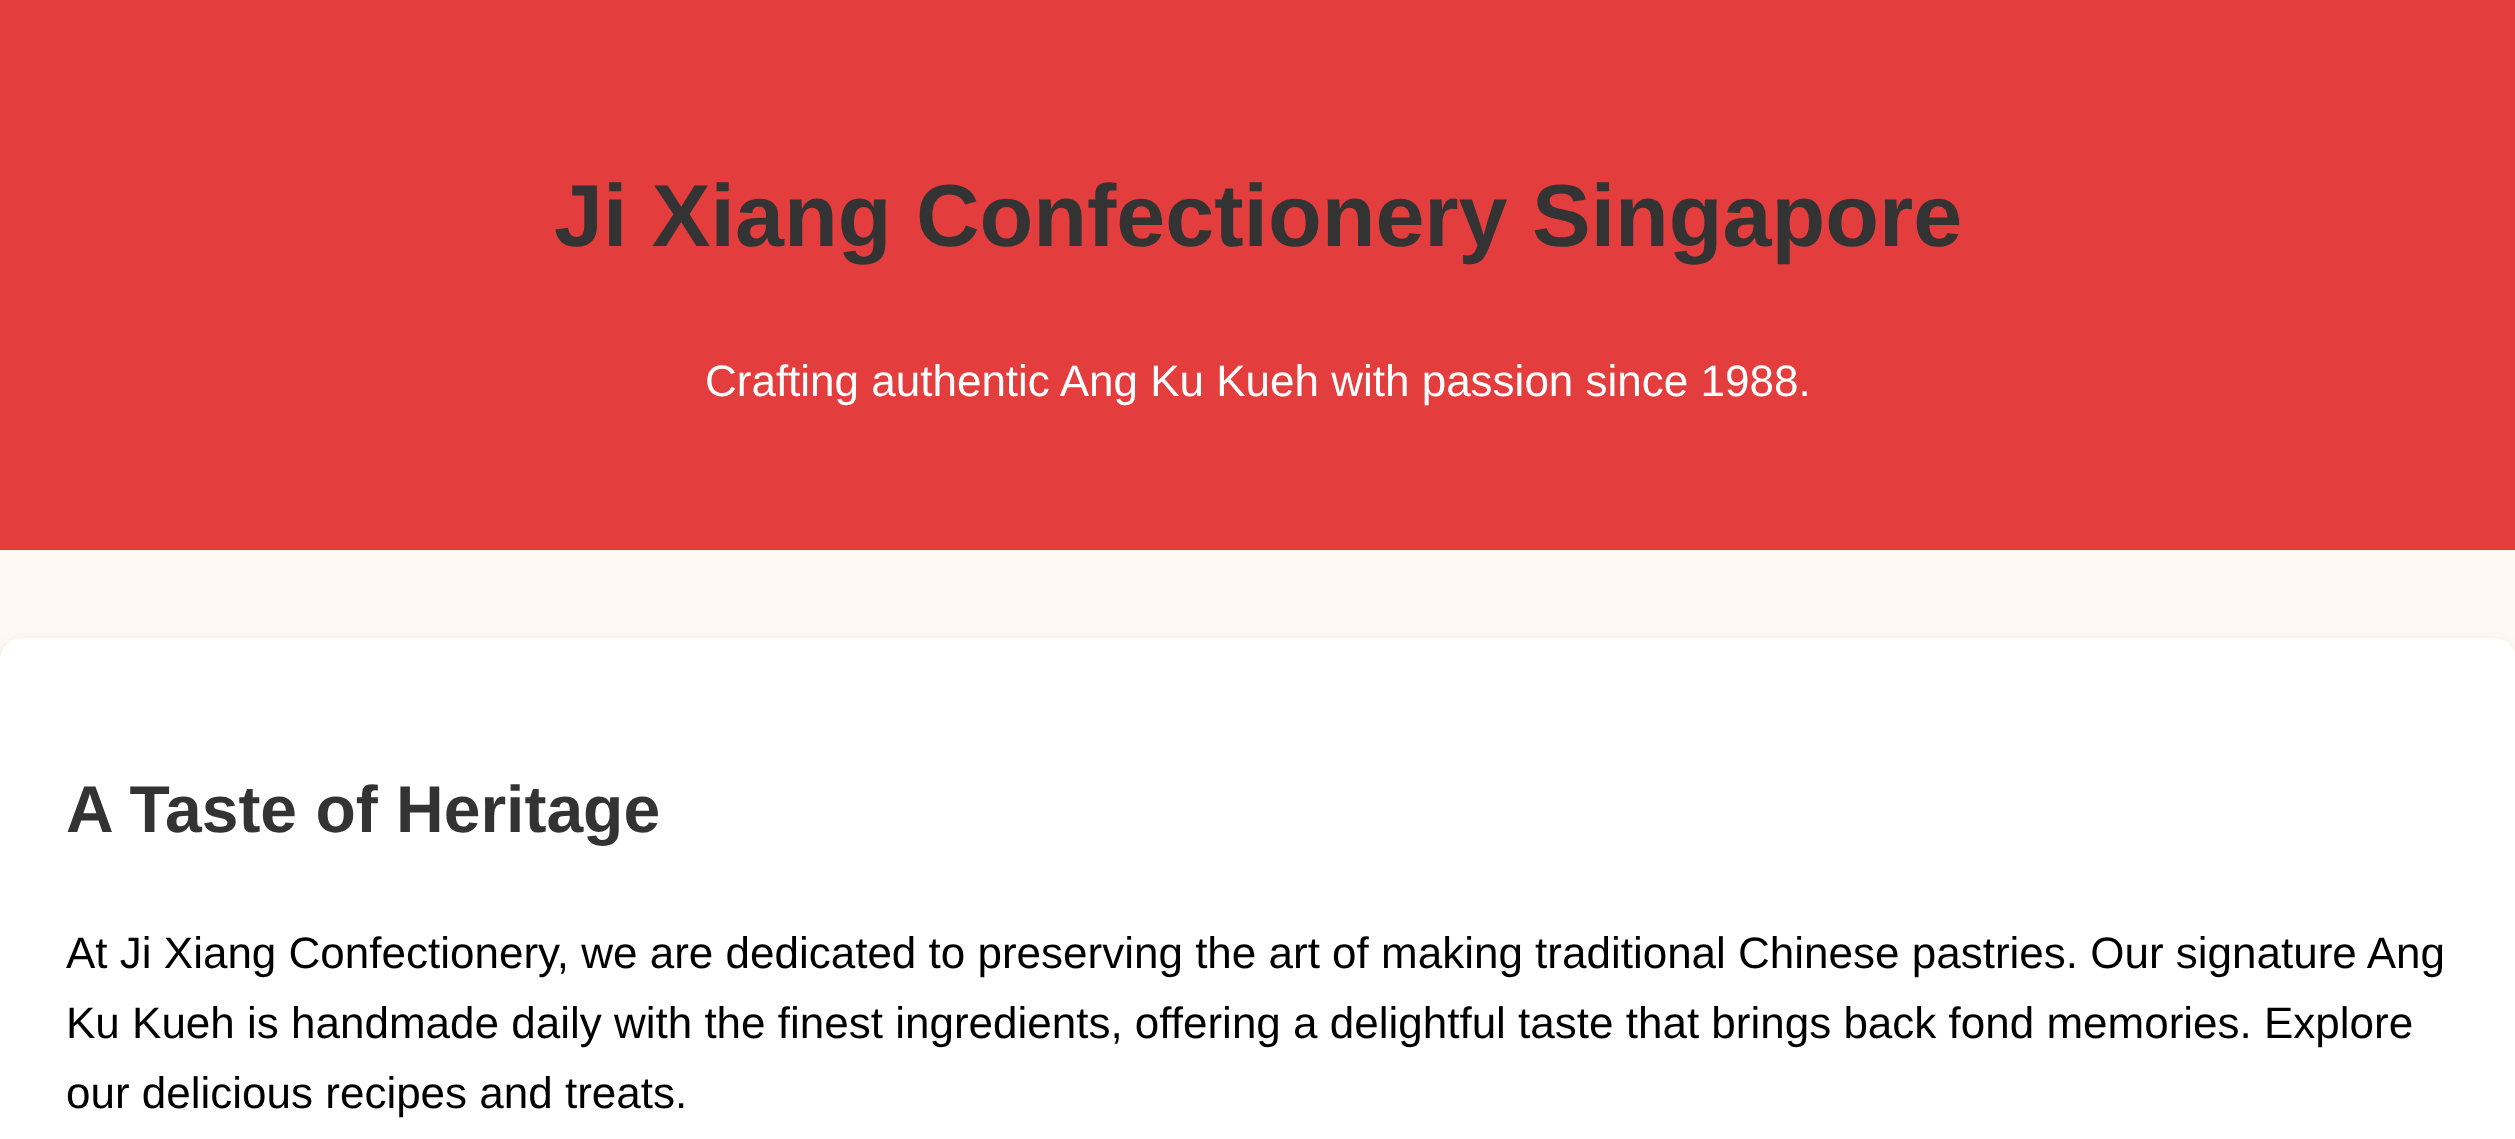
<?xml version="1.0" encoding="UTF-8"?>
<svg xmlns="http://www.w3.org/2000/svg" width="2515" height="1139">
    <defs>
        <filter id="blur1" x="-50%" y="-200%" width="200%" height="500%"><feGaussianBlur stdDeviation="7"/></filter>
    </defs>
    <rect width="100%" height="100%" fill="#FEF9F2"/>
    <rect x="0" y="0" width="2515" height="550" fill="#E33D3D"/>
    <text x="554" y="246" font-family="Liberation Sans" font-size="88" font-weight="700" fill="#333333">Ji Xiang Confectionery Singapore</text>
    <text x="705" y="396" font-family="Liberation Sans" font-size="44" fill="#FFFFFF">Crafting authentic Ang Ku Kueh with passion since 1988.</text>
    <rect x="0" y="644" width="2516" height="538" rx="22" fill="#000000" fill-opacity="0.1" filter="url(#blur1)"/>
    <rect x="0" y="638" width="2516" height="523" rx="22" fill="#FFFFFF"/>
    <text x="66" y="832" font-family="Liberation Sans" font-size="66" font-weight="700" fill="#333333">A Taste of Heritage</text>
    <text font-family="Liberation Sans" font-size="44" fill="#000000">
        <tspan x="66" y="968">At Ji Xiang Confectionery, we are dedicated to preserving the art of making traditional Chinese pastries. Our signature Ang</tspan>
        <tspan x="66" y="1038">Ku Kueh is handmade daily with the finest ingredients, offering a delightful taste that brings back fond memories. Explore</tspan>
        <tspan x="66" y="1108">our delicious recipes and treats.</tspan>
    </text>
</svg>
